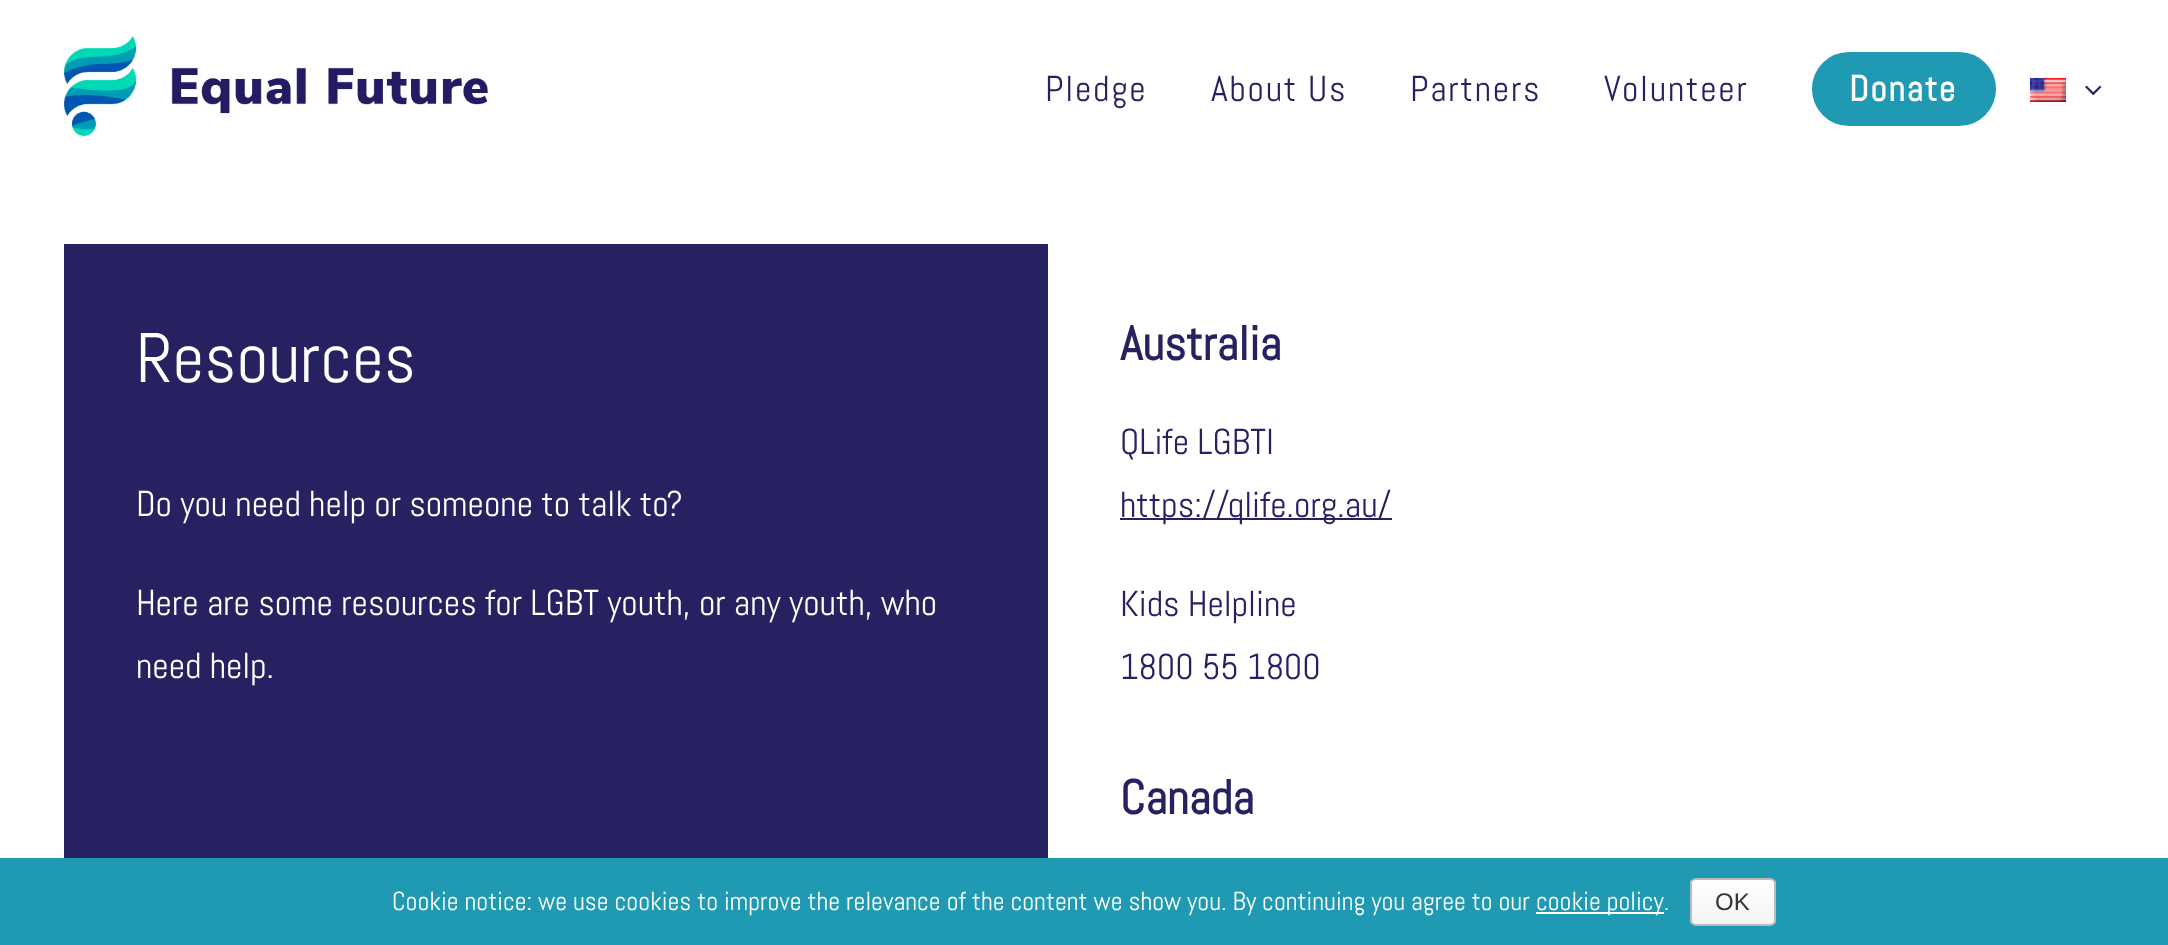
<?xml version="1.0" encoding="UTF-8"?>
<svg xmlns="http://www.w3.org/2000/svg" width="2168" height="945">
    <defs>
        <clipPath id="clip1"><rect x="1690" y="878" width="86" height="48" rx="6"/></clipPath>
        <linearGradient id="g1" gradientUnits="userSpaceOnUse" x1="1733" y1="880" x2="1733" y2="924"><stop offset="0" stop-color="#FEFEFE"/><stop offset="1" stop-color="#F4F4F4"/></linearGradient>
    </defs>
    <rect width="100%" height="100%" fill="#FFFFFF"/>
    <image x="64" y="36" width="424" height="100" href="img_01.png"/>
    <text x="1045" y="101" font-family="Abel" font-size="36" letter-spacing="1.75" fill="#262261">Pledge</text>
    <text x="1211" y="101" font-family="Abel" font-size="36" letter-spacing="1.75" fill="#262261">About Us</text>
    <text x="1410" y="101" font-family="Abel" font-size="36" letter-spacing="1.75" fill="#262261">Partners</text>
    <text x="1604" y="101" font-family="Abel" font-size="36" letter-spacing="1.75" fill="#262261">Volunteer</text>
    <rect x="1813" y="53" width="182" height="72" rx="36" fill="#209AB2" stroke="#209AB2" stroke-width="2"/>
    <text x="1849" y="101" font-family="Abel" font-size="36" font-weight="700" letter-spacing="1.75" fill="#FFFFFF">Donate</text>
    <image x="2030" y="78" width="36" height="24" href="img_02.png"/>
    <image x="2085" y="85" width="17" height="11" href="img_03.png"/>
    <rect x="64" y="244" width="984" height="614" fill="#262261"/>
    <text x="136" y="382" font-family="Abel" font-size="70" fill="#FFFFFF">Resources</text>
    <text x="136" y="516" font-family="Abel" font-size="36" fill="#FFFFFF">Do you need help or someone to talk to?</text>
    <text font-family="Abel" font-size="36" fill="#FFFFFF">
        <tspan x="136" y="615">Here are some resources for LGBT youth, or any youth, who</tspan>
        <tspan x="136" y="678">need help.</tspan>
    </text>
    <text x="1120" y="360" font-family="Abel" font-size="48" font-weight="700" fill="#262261">Australia</text>
    <text x="1120" y="454" font-family="Abel" font-size="36" fill="#262261">QLife LGBTI</text>
    <rect x="1120" y="518" width="272" height="2" fill="#262261"/>
    <text x="1120" y="517" font-family="Abel" font-size="36" fill="#262261">https://qlife.org.au/</text>
    <text font-family="Abel" font-size="36" fill="#262261">
        <tspan x="1120" y="616">Kids Helpline</tspan>
        <tspan x="1120" y="679">1800 55 1800</tspan>
    </text>
    <text x="1120" y="814" font-family="Abel" font-size="48" font-weight="700" fill="#262261">Canada</text>
    <rect x="0" y="858" width="2168" height="87" fill="#209AB2"/>
    <text x="392" y="910" font-family="Abel" font-size="26" fill="#FFFFFF">Cookie notice: we use cookies to improve the relevance of the content we show you. By continuing you agree to our</text>
    <rect x="1536" y="912" width="128" height="2" fill="#FFFFFF"/>
    <text x="1536" y="910" font-family="Abel" font-size="26" fill="#FFFFFF">cookie policy.</text>
    <g clip-path="url(#clip1)">
        <rect x="1690" y="880" width="86" height="44" fill="url(#g1)"/>
    </g>
    <rect x="1691" y="879" width="84" height="46" rx="5" fill="none" stroke="#BBBBBB" stroke-width="2"/>
    <text x="1715" y="910" font-family="Liberation Sans" font-size="24" fill="#333333">OK</text>
</svg>
